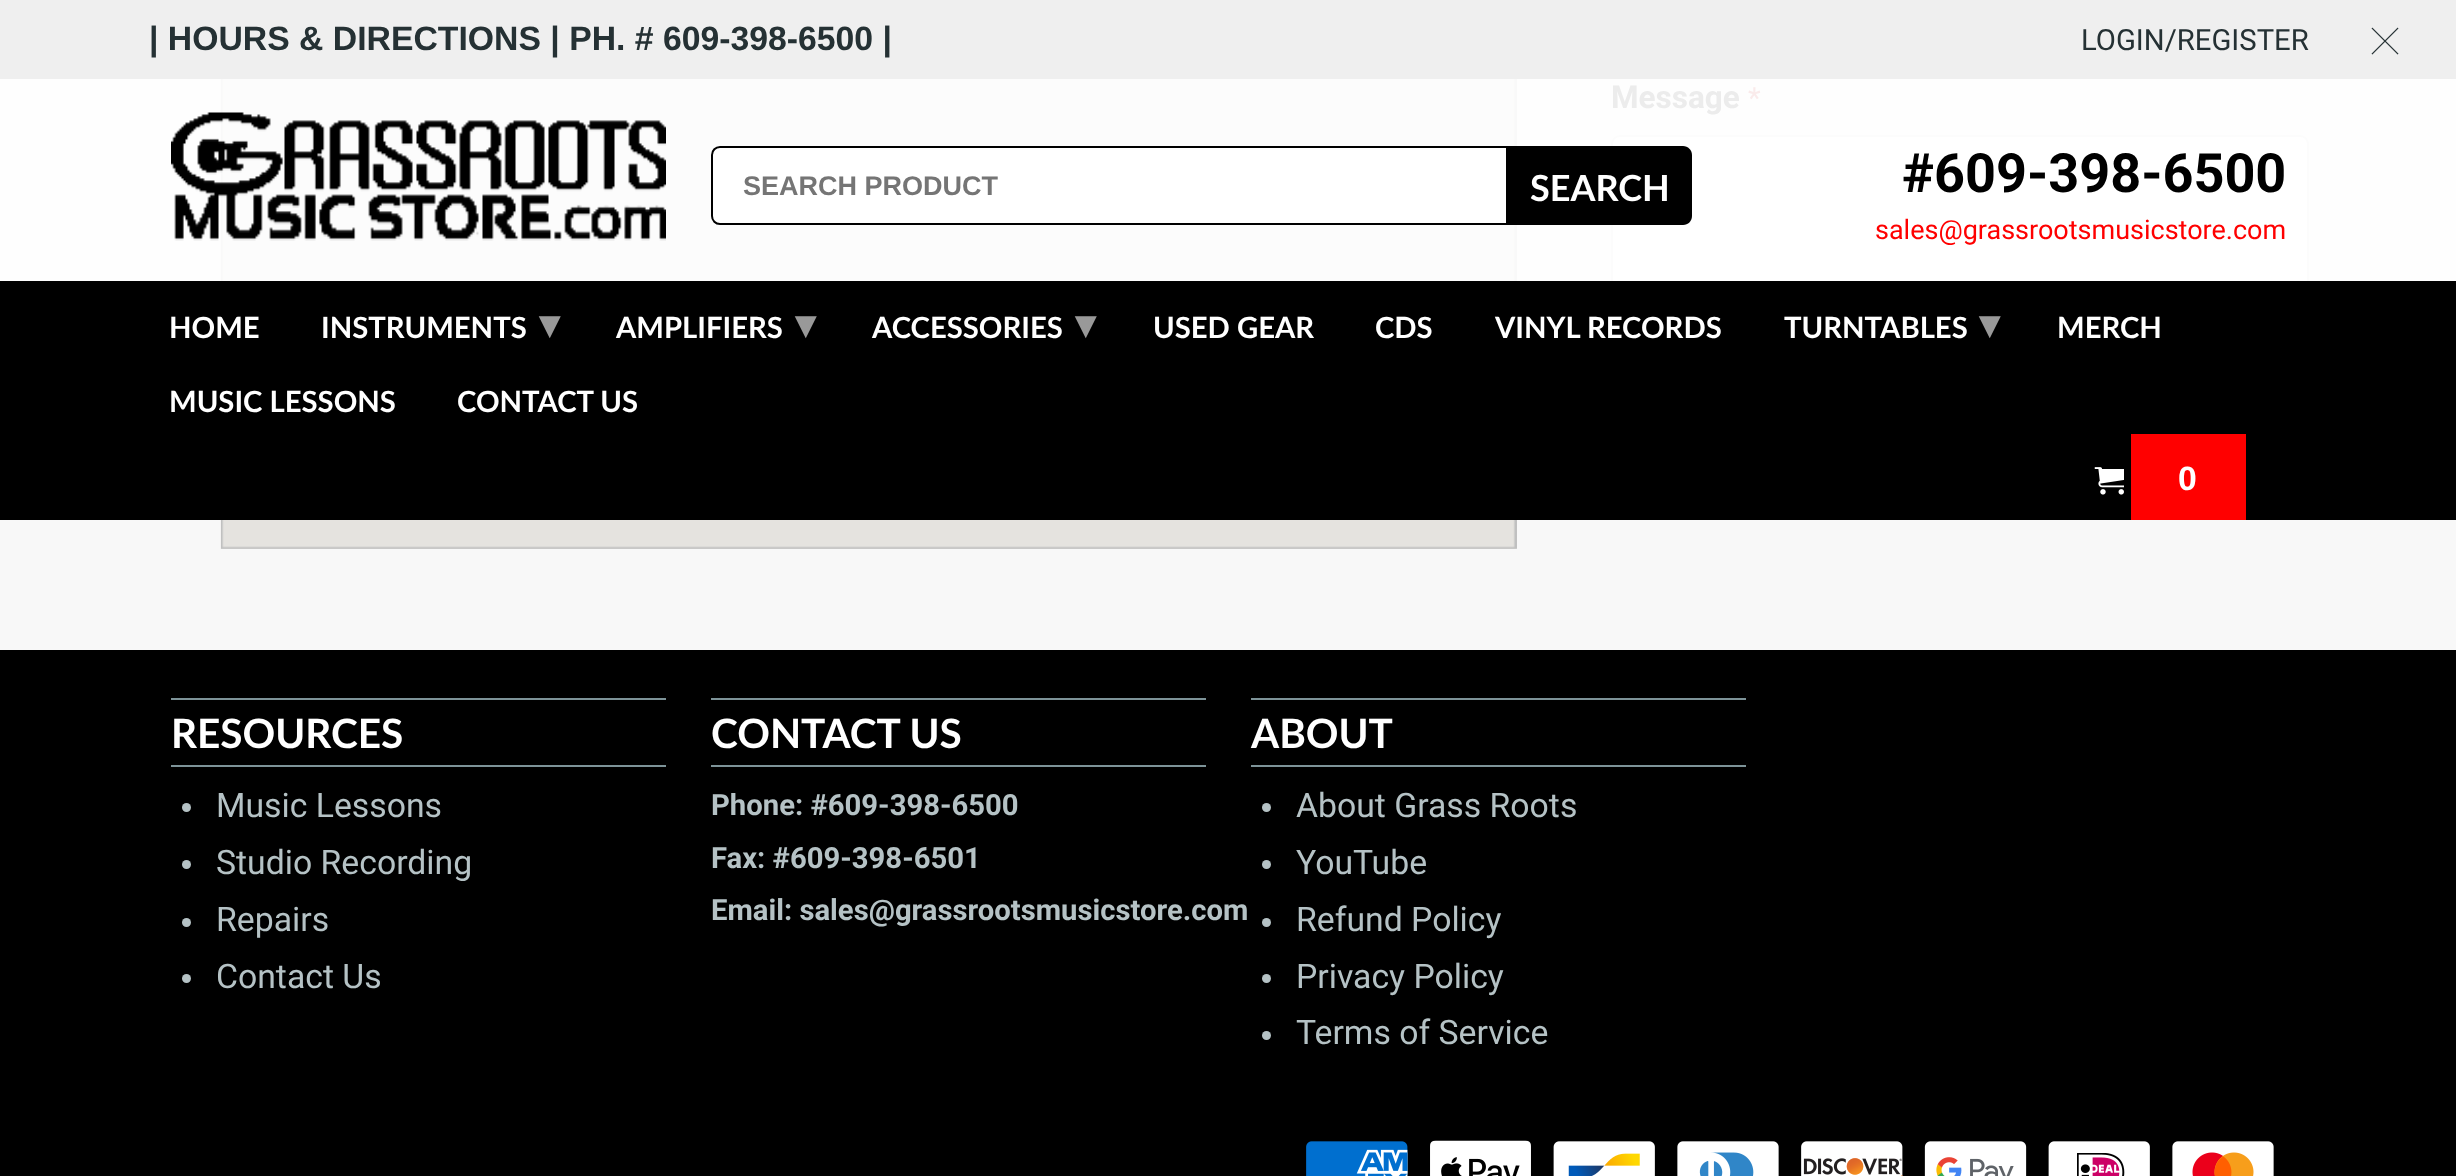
<?xml version="1.0" encoding="UTF-8"?>
<svg xmlns="http://www.w3.org/2000/svg" width="2456" height="1176">
    <rect width="100%" height="100%" fill="#F8F8F8"/>
    <rect x="0" y="79" width="2456" height="202" fill="#FEFEFE"/>
    <rect x="0" y="0" width="2456" height="79" fill="#EFEFEF"/>
    <text x="149" y="50" font-family="Liberation Sans" font-size="33.75" font-weight="700" fill="#253134">| HOURS &amp; DIRECTIONS | PH. # 609-398-6500 |</text>
    <text x="2081" y="50" font-family="Roboto" font-size="29.25" fill="#253134">LOGIN/REGISTER</text>
    <image x="2371" y="27" width="28" height="28" href="img_01.png"/>
    <image x="220" y="79" width="1297" height="470" href="img_04.png"/>
    <image x="171" y="112" width="495" height="129" href="img_02.png"/>
    <path d="M 720 147 H 1507 V 224 H 720 C 715.5 224 712 220.5 712 216 V 155 C 712 150.5 715.5 147 720 147 Z" fill="#FFFFFF" stroke="#000000" stroke-width="2"/>
    <text x="743" y="195" font-family="Liberation Sans" font-size="27" font-weight="700" fill="#757575">SEARCH PRODUCT</text>
    <rect x="1612" y="136" width="696" height="221" rx="8" fill="#FFFFFF" stroke="#FCFCFC" stroke-width="2"/>
    <path d="M 1508 146 H 1683 C 1688 146 1692 150 1692 155 V 216 C 1692 221 1688 225 1683 225 H 1508 Z" fill="#000000"/>
    <path d="M 1508 218 V 225 H 1683 C 1688 225 1692 221 1692 216 V 209 C 1692 214 1688 218 1683 218 Z" fill="#000000" fill-opacity="0.1"/>
    <text x="1530" y="201" font-family="Lato" font-size="36" font-weight="700" fill="#FFFFFF">SEARCH</text>
    <text x="1902" y="192" font-family="Roboto" font-size="54" font-weight="700" fill="#000000">#609-398-6500</text>
    <text x="1875" y="239" font-family="Roboto" font-size="27" fill="#FF0000">sales@grassrootsmusicstore.com</text>
    <rect x="0" y="281" width="2456" height="239" fill="#000000"/>
    <text x="169" y="338" font-family="Lato" font-size="29.25" font-weight="700" fill="#FFFFFF">HOME</text>
    <text x="321" y="338" font-family="Lato" font-size="29.25" font-weight="700" fill="#FFFFFF">INSTRUMENTS</text>
    <text x="539" y="338" font-family="DejaVu Sans" font-size="40.5" font-weight="700" fill="#999999">▾</text>
    <text x="616" y="338" font-family="Lato" font-size="29.25" font-weight="700" fill="#FFFFFF">AMPLIFIERS</text>
    <text x="795" y="338" font-family="DejaVu Sans" font-size="40.5" font-weight="700" fill="#999999">▾</text>
    <text x="872" y="338" font-family="Lato" font-size="29.25" font-weight="700" fill="#FFFFFF">ACCESSORIES</text>
    <text x="1075" y="338" font-family="DejaVu Sans" font-size="40.5" font-weight="700" fill="#999999">▾</text>
    <text x="1153" y="338" font-family="Lato" font-size="29.25" font-weight="700" fill="#FFFFFF">USED GEAR</text>
    <text x="1375" y="338" font-family="Lato" font-size="29.25" font-weight="700" fill="#FFFFFF">CDS</text>
    <text x="1495" y="338" font-family="Lato" font-size="29.25" font-weight="700" fill="#FFFFFF">VINYL RECORDS</text>
    <text x="1784" y="338" font-family="Lato" font-size="29.25" font-weight="700" fill="#FFFFFF">TURNTABLES</text>
    <text x="1979" y="338" font-family="DejaVu Sans" font-size="40.5" font-weight="700" fill="#999999">▾</text>
    <text x="2057" y="338" font-family="Lato" font-size="29.25" font-weight="700" fill="#FFFFFF">MERCH</text>
    <text x="169" y="412" font-family="Lato" font-size="29.25" font-weight="700" fill="#FFFFFF">MUSIC LESSONS</text>
    <text x="457" y="412" font-family="Lato" font-size="29.25" font-weight="700" fill="#FFFFFF">CONTACT US</text>
    <image x="2094" y="467" width="30" height="28" href="img_03.png"/>
    <rect x="2131" y="434" width="115" height="86" fill="#FF0000"/>
    <text x="2178" y="490" font-family="Liberation Sans" font-size="33.75" font-weight="700" fill="#FFFFFF">0</text>
    <text x="1611" y="108" font-family="Roboto" font-size="31.5" font-weight="700" fill="#ECECEC">Message</text>
    <text x="1748" y="108" font-family="Roboto" font-size="29.25" fill="#FAEBEB">*</text>
    <rect x="0" y="650" width="2456" height="526" fill="#000000"/>
    <rect x="171" y="698" width="495" height="2" fill="#7D9398"/>
    <rect x="171" y="765" width="495" height="2" fill="#7D9398"/>
    <text x="171" y="748" font-family="Lato" font-size="40.5" font-weight="700" fill="#FFFFFF">RESOURCES</text>
    <circle cx="186.5" cy="807.5" r="4.5" fill="#B5C2C5"/>
    <text x="216" y="817" font-family="Roboto" font-size="33.75" fill="#B5C2C5">Music Lessons</text>
    <circle cx="186.5" cy="864.5" r="4.5" fill="#B5C2C5"/>
    <text x="216" y="874" font-family="Roboto" font-size="33.75" fill="#B5C2C5">Studio Recording</text>
    <circle cx="186.5" cy="922.5" r="4.5" fill="#B5C2C5"/>
    <text x="216" y="931" font-family="Roboto" font-size="33.75" fill="#B5C2C5">Repairs</text>
    <circle cx="186.5" cy="978.5" r="4.5" fill="#B5C2C5"/>
    <text x="216" y="988" font-family="Roboto" font-size="33.75" fill="#B5C2C5">Contact Us</text>
    <rect x="711" y="698" width="495" height="2" fill="#7D9398"/>
    <rect x="711" y="765" width="495" height="2" fill="#7D9398"/>
    <text x="711" y="748" font-family="Lato" font-size="40.5" font-weight="700" fill="#FFFFFF">CONTACT US</text>
    <text font-family="Roboto" font-size="29.25" font-weight="700" fill="#B5C2C5">
        <tspan x="711" y="815">Phone: #609-398-6500</tspan>
        <tspan x="711" y="868">Fax: #609-398-6501</tspan>
        <tspan x="711" y="920">Email: sales@grassrootsmusicstore.com</tspan>
    </text>
    <rect x="1251" y="698" width="495" height="2" fill="#7D9398"/>
    <rect x="1251" y="765" width="495" height="2" fill="#7D9398"/>
    <text x="1251" y="748" font-family="Lato" font-size="40.5" font-weight="700" fill="#FFFFFF">ABOUT</text>
    <circle cx="1266.5" cy="807.5" r="4.5" fill="#B5C2C5"/>
    <text x="1296" y="817" font-family="Roboto" font-size="33.75" fill="#B5C2C5">About Grass Roots</text>
    <circle cx="1266.5" cy="864.5" r="4.5" fill="#B5C2C5"/>
    <text x="1296" y="874" font-family="Roboto" font-size="33.75" fill="#B5C2C5">YouTube</text>
    <circle cx="1266.5" cy="922.5" r="4.5" fill="#B5C2C5"/>
    <text x="1296" y="931" font-family="Roboto" font-size="33.75" fill="#B5C2C5">Refund Policy</text>
    <circle cx="1266.5" cy="978.5" r="4.5" fill="#B5C2C5"/>
    <text x="1296" y="988" font-family="Roboto" font-size="33.75" fill="#B5C2C5">Privacy Policy</text>
    <circle cx="1266.5" cy="1035.5" r="4.5" fill="#B5C2C5"/>
    <text x="1296" y="1044" font-family="Roboto" font-size="33.75" fill="#B5C2C5">Terms of Service</text>
    <image x="1306" y="1141" width="102" height="35" href="img_05.png"/>
    <image x="1430" y="1140" width="101" height="36" href="img_06.png"/>
    <image x="1553" y="1141" width="102" height="35" href="img_07.png"/>
    <image x="1677" y="1141" width="102" height="35" href="img_08.png"/>
    <image x="1801" y="1141" width="102" height="35" href="img_09.png"/>
    <image x="1924" y="1141" width="103" height="35" href="img_10.png"/>
    <image x="2048" y="1141" width="102" height="35" href="img_11.png"/>
    <image x="2172" y="1141" width="102" height="35" href="img_12.png"/>
</svg>
